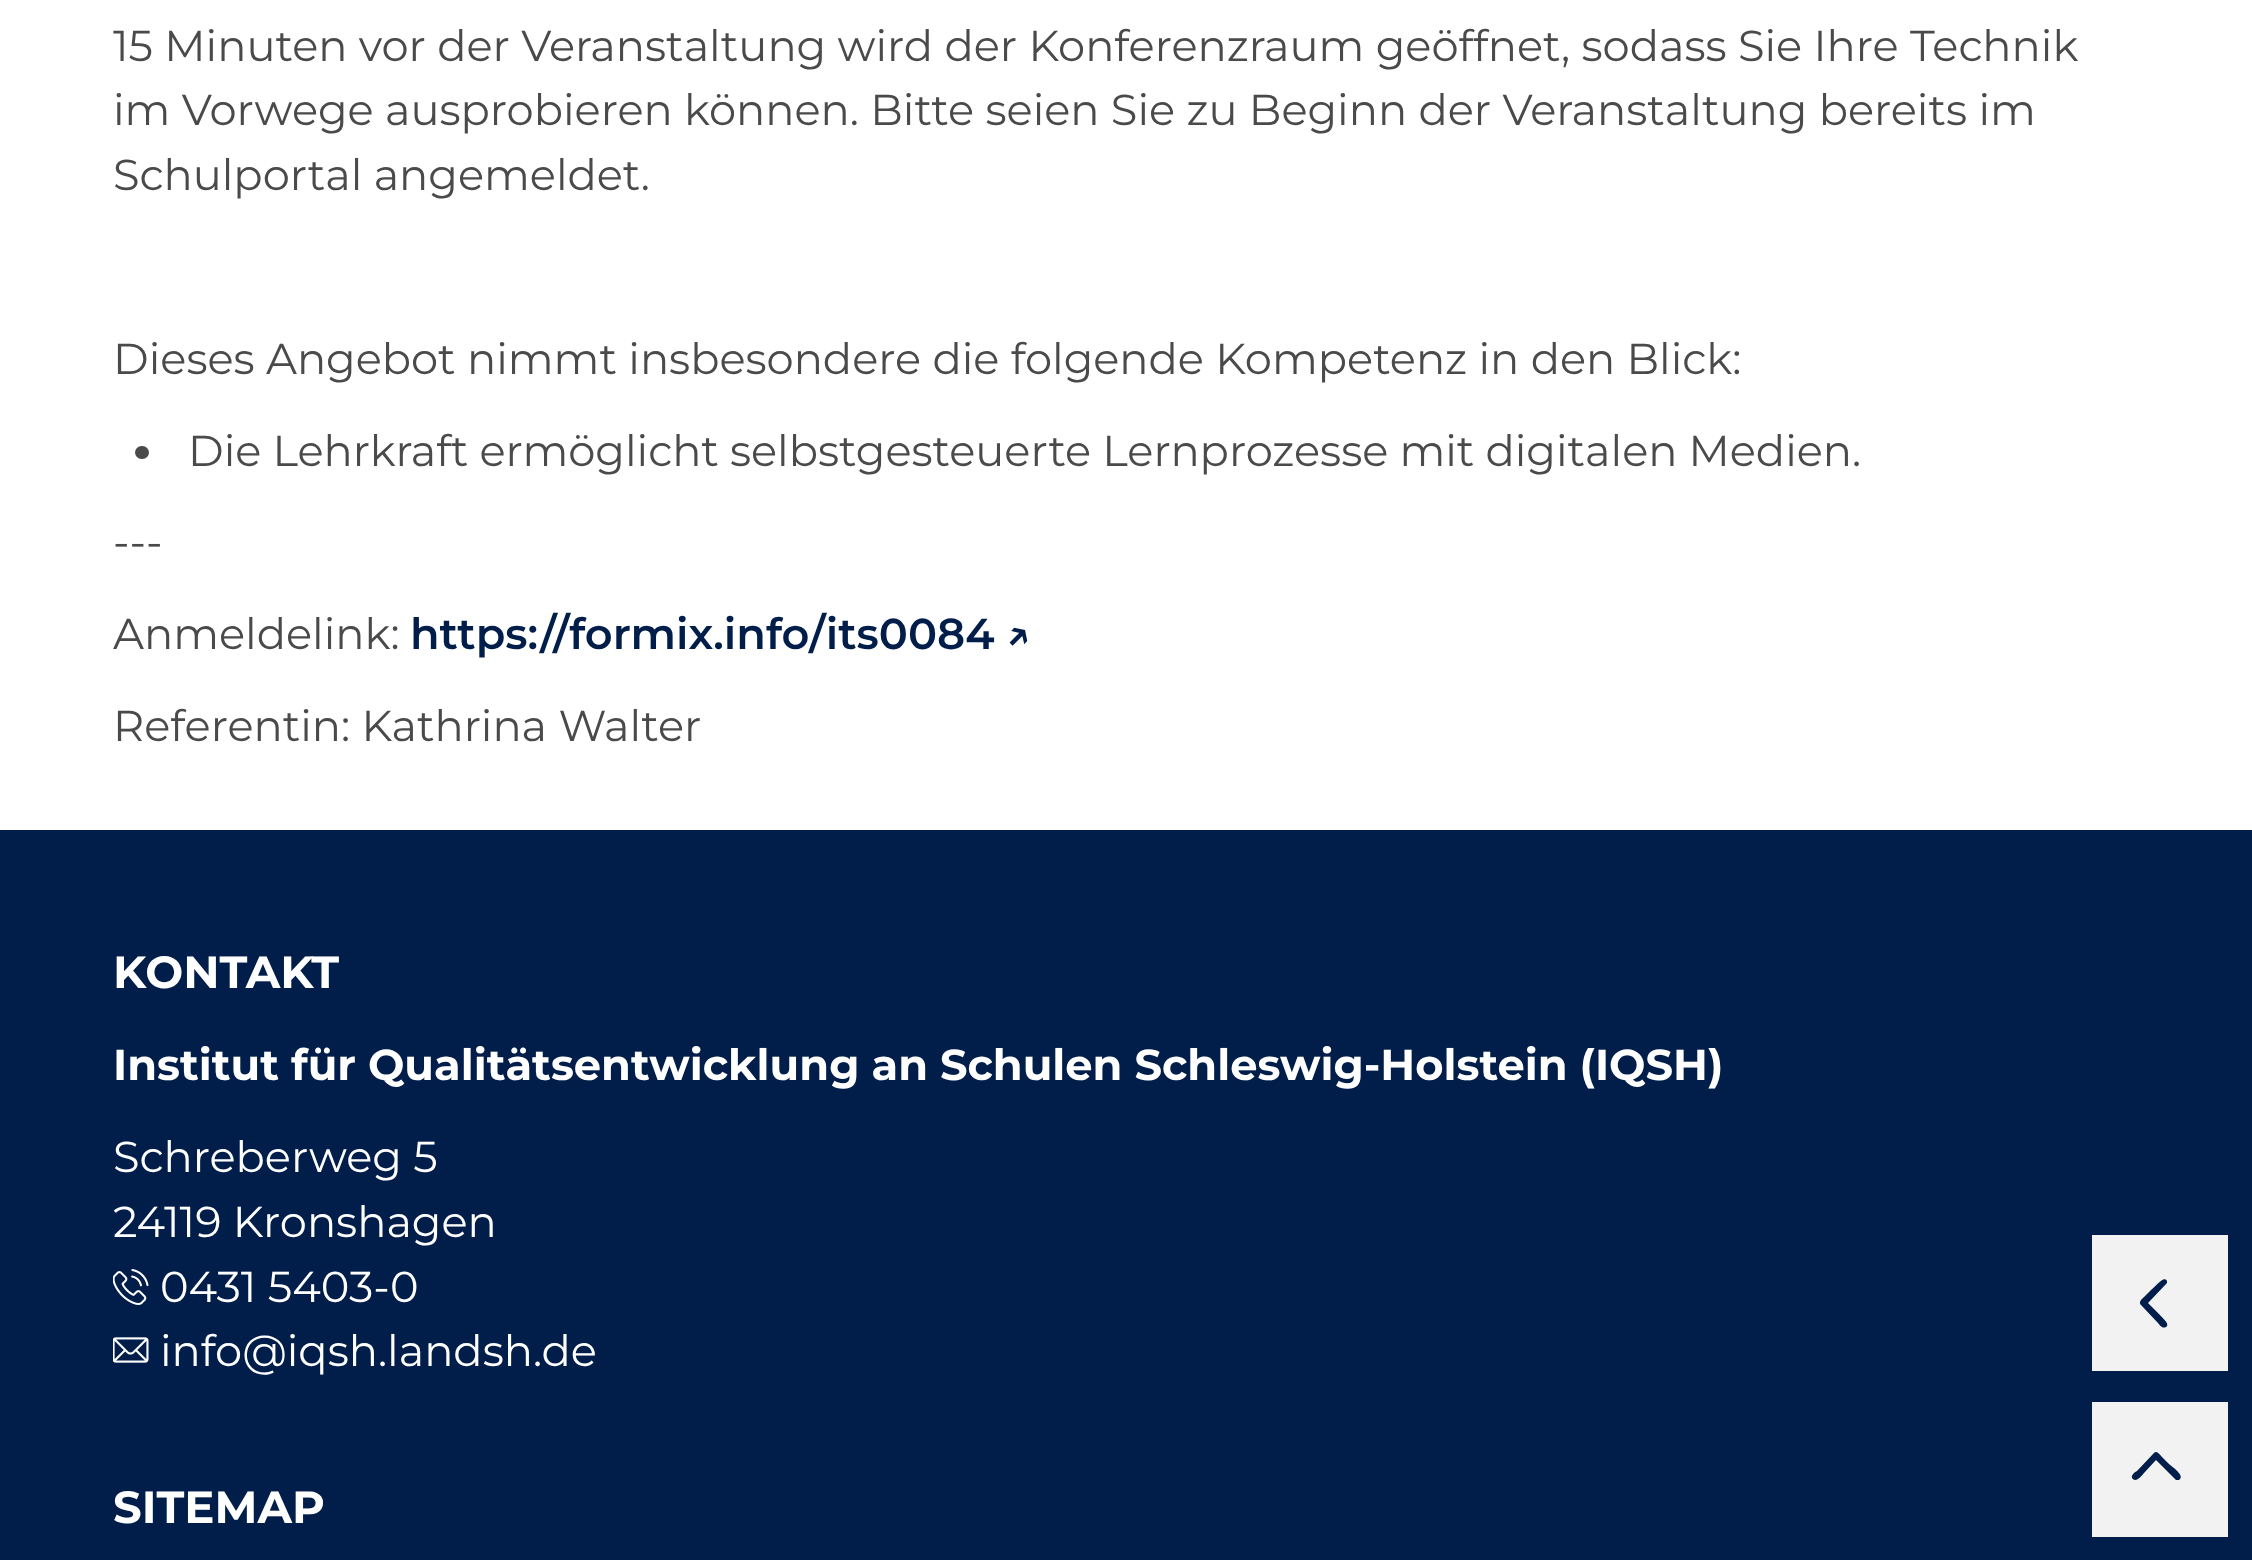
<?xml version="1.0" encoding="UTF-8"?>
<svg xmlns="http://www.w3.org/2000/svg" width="2252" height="1560">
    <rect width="100%" height="100%" fill="#FFFFFF"/>
    <text font-family="Montserrat" font-size="43.2" fill="#4A4A4A">
        <tspan x="113" y="61">15 Minuten vor der Veranstaltung wird der Konferenzraum geöffnet, sodass Sie Ihre Technik</tspan>
        <tspan x="113" y="125">im Vorwege ausprobieren können. Bitte seien Sie zu Beginn der Veranstaltung bereits im</tspan>
        <tspan x="113" y="190">Schulportal angemeldet.</tspan>
    </text>
    <text x="113" y="374" font-family="Montserrat" font-size="43.2" fill="#4A4A4A">Dieses Angebot nimmt insbesondere die folgende Kompetenz in den Blick:</text>
    <rect x="135" y="446" width="14" height="13" rx="6.5" fill="#4A4A4A"/>
    <text x="188" y="466" word-spacing="-0.25" font-family="Montserrat" font-size="43.2" fill="#4A4A4A">Die Lehrkraft ermöglicht selbstgesteuerte Lernprozesse mit digitalen Medien.</text>
    <text x="113" y="557" font-family="Montserrat" font-size="43.2" fill="#4A4A4A">---</text>
    <text x="113" y="649" font-family="Montserrat" font-size="43.2" fill="#4A4A4A">Anmeldelink:</text>
    <text x="410" y="649" font-family="Montserrat" font-size="43.2" font-weight="600" fill="#011E4A">https://formix.info/its0084</text>
    <text x="1005" y="649" font-family="Montserrat" font-size="43.2" font-weight="600" fill="#011E4A">↗</text>
    <text x="113" y="741" font-family="Montserrat" font-size="43.2" fill="#4A4A4A">Referentin: Kathrina Walter</text>
    <rect x="0" y="830" width="2252" height="730" fill="#011E4A"/>
    <text x="113" y="988" font-family="Montserrat" font-size="45" font-weight="700" fill="#FFFFFF">KONTAKT</text>
    <text x="113" y="1080" word-spacing="-0.25" font-family="Montserrat" font-size="43.2" font-weight="700" fill="#FFFFFF">Institut für Qualitätsentwicklung an Schulen Schleswig-Holstein (IQSH)</text>
    <text font-family="Montserrat" font-size="43.2" fill="#FFFFFF">
        <tspan x="113" y="1172">Schreberweg 5</tspan>
        <tspan x="113" y="1237">24119 Kronshagen</tspan>
    </text>
    <image x="113" y="1269" width="36" height="36" href="img_01.png"/>
    <text x="160" y="1302" font-family="Montserrat" font-size="43.2" fill="#FFFFFF">0431 5403-0</text>
    <image x="113" y="1337" width="36" height="26" href="img_02.png"/>
    <text x="160" y="1366" font-family="Montserrat" font-size="43.2" fill="#FFFFFF">info@iqsh.landsh.de</text>
    <rect x="2092" y="1235" width="136" height="136" fill="#F2F2F2"/>
    <path d="M 2141 1305 L 2158 1323 C 2160 1325 2162 1329 2166 1327 C 2171 1324 2161 1317 2160 1315 L 2148 1303 L 2167 1283 V 1281 C 2164 1275 2157 1285 2151 1290 L 2144 1297 C 2142 1299 2138 1302 2141 1305 Z" fill="#011E4A"/>
    <text x="113" y="1523" font-family="Montserrat" font-size="45" font-weight="700" fill="#FFFFFF">SITEMAP</text>
    <rect x="2092" y="1402" width="136" height="135" fill="#F2F2F2"/>
    <path d="M 2154 1453 L 2137 1471 C 2135 1472 2131 1475 2132 1478 C 2136 1484 2143 1474 2144 1473 L 2156 1460 L 2176 1480 H 2179 C 2185 1476 2175 1469 2169 1464 L 2162 1457 C 2160 1455 2157 1450 2154 1453 Z" fill="#011E4A"/>
</svg>
